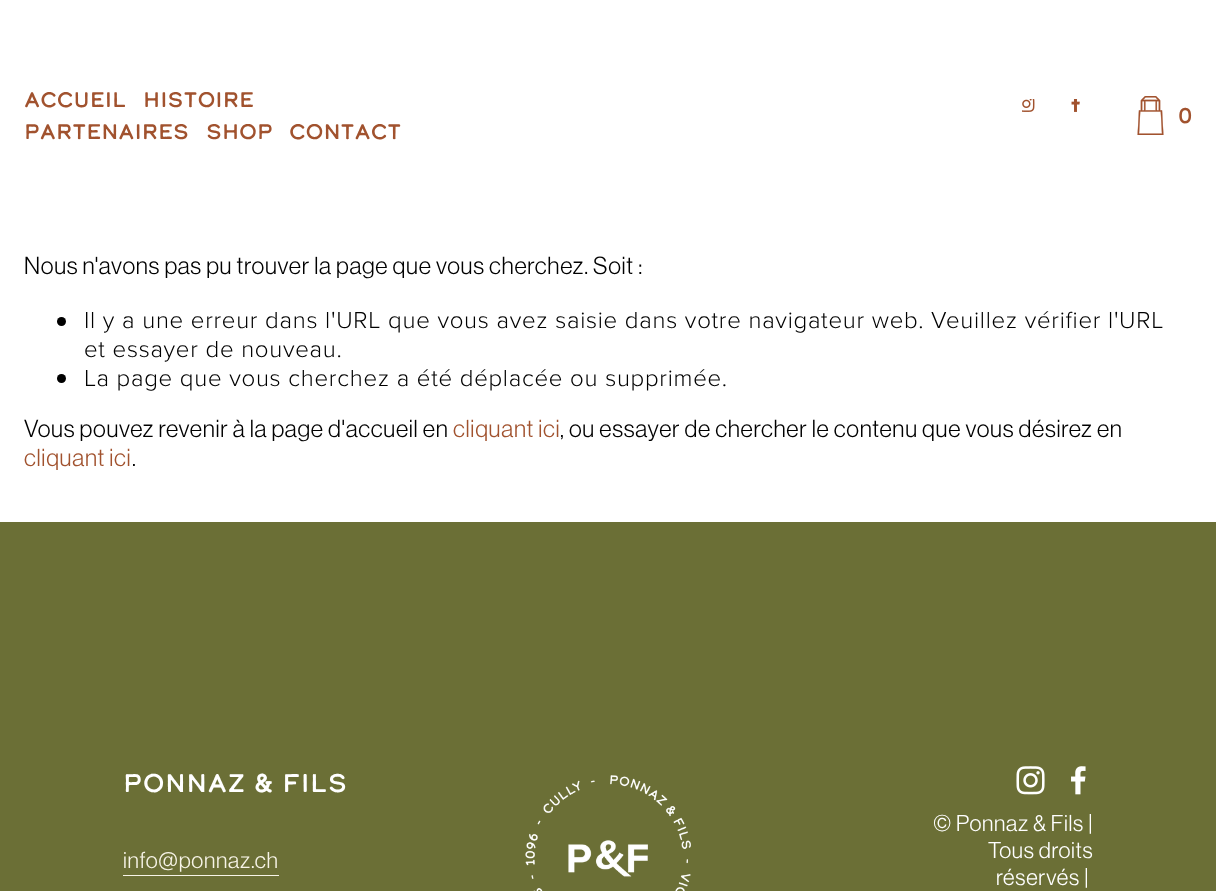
<?xml version="1.0" encoding="UTF-8"?>
<svg xmlns="http://www.w3.org/2000/svg" width="1216" height="891">
    <rect width="100%" height="100%" fill="#FFFFFF"/>
    <text x="24" y="107" font-family="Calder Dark" font-size="21" fill="#A1522E">Accueil</text>
    <text x="143" y="107" font-family="Calder Dark" font-size="21" fill="#A1522E">Histoire</text>
    <text x="24" y="139" font-family="Calder Dark" font-size="21" fill="#A1522E">Partenaires</text>
    <text x="206" y="139" font-family="Calder Dark" font-size="21" fill="#A1522E">Shop</text>
    <text x="289" y="139" font-family="Calder Dark" font-size="21" fill="#A1522E">Contact</text>
    <image x="1022" y="99" width="13" height="13" href="img_01.png"/>
    <image x="1071" y="99" width="9" height="13" href="img_02.png"/>
    <image x="1137" y="96" width="27" height="39" href="img_03.png"/>
    <text x="1178" y="123" font-family="Calder Dark" font-size="21" fill="#A1522E">0</text>
    <text x="24" y="274" font-family="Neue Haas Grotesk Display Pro" font-size="24" font-weight="300" letter-spacing="0.72" fill="#000000">Nous n'avons pas pu trouver la page que vous cherchez. Soit :</text>
    <circle cx="61.5" cy="321.5" r="4.5" fill="#000000"/>
    <text font-family="Proxima Nova" font-size="24" font-weight="300" letter-spacing="0.72" fill="#000000">
        <tspan x="84" y="328">Il y a une erreur dans l'URL que vous avez saisie dans votre navigateur web. Veuillez vérifier l'URL</tspan>
        <tspan x="84" y="357">et essayer de nouveau.</tspan>
    </text>
    <circle cx="61.5" cy="378.5" r="4.5" fill="#000000"/>
    <text x="84" y="386" font-family="Proxima Nova" font-size="24" font-weight="300" letter-spacing="0.72" fill="#000000">La page que vous cherchez a été déplacée ou supprimée.</text>
    <text x="24" y="437" font-family="Neue Haas Grotesk Display Pro" font-size="24" font-weight="300" letter-spacing="0.72" fill="#000000">Vous pouvez revenir à la page d'accueil en</text>
    <text x="453" y="437" font-family="Neue Haas Grotesk Display Pro" font-size="24" font-weight="300" letter-spacing="0.72" fill="#A1522E">cliquant ici</text>
    <text x="560" y="437" font-family="Neue Haas Grotesk Display Pro" font-size="24" font-weight="300" letter-spacing="0.72" fill="#000000">, ou essayer de chercher le contenu que vous désirez en</text>
    <text x="24" y="466" font-family="Neue Haas Grotesk Display Pro" font-size="24" font-weight="300" letter-spacing="0.72" fill="#A1522E">cliquant ici</text>
    <text x="132" y="466" font-family="Neue Haas Grotesk Display Pro" font-size="24" font-weight="300" letter-spacing="0.72" fill="#000000">.</text>
    <rect x="0" y="522" width="1216" height="369" fill="#6B6F36"/>
    <text x="123" y="792" font-family="Calder Dark" font-size="25.5" letter-spacing="0.5" fill="#FFFFFF">Ponnaz &amp; Fils</text>
    <rect x="123" y="875" width="156" height="1" fill="#F7F4E7"/>
    <text x="123" y="868" font-family="Neue Haas Grotesk Display Pro" font-size="22.5" font-weight="300" letter-spacing="0.72" fill="#F7F4E7">info@ponnaz.ch</text>
    <image x="525" y="775" width="166" height="116" href="img_04.png"/>
    <image x="1016" y="766" width="29" height="29" href="img_05.png"/>
    <image x="1071" y="766" width="15" height="29" href="img_06.png"/>
    <text x="933" y="831" font-family="Neue Haas Grotesk Display Pro" font-size="22.5" font-weight="300" letter-spacing="0.72" fill="#FFFFFF">© Ponnaz &amp; Fils |</text>
    <text x="988" y="858" font-family="Neue Haas Grotesk Display Pro" font-size="22.5" font-weight="300" letter-spacing="0.72" fill="#FFFFFF">Tous droits</text>
    <text x="996" y="885" font-family="Neue Haas Grotesk Display Pro" font-size="22.5" font-weight="300" letter-spacing="0.72" fill="#FFFFFF">réservés |</text>
</svg>
